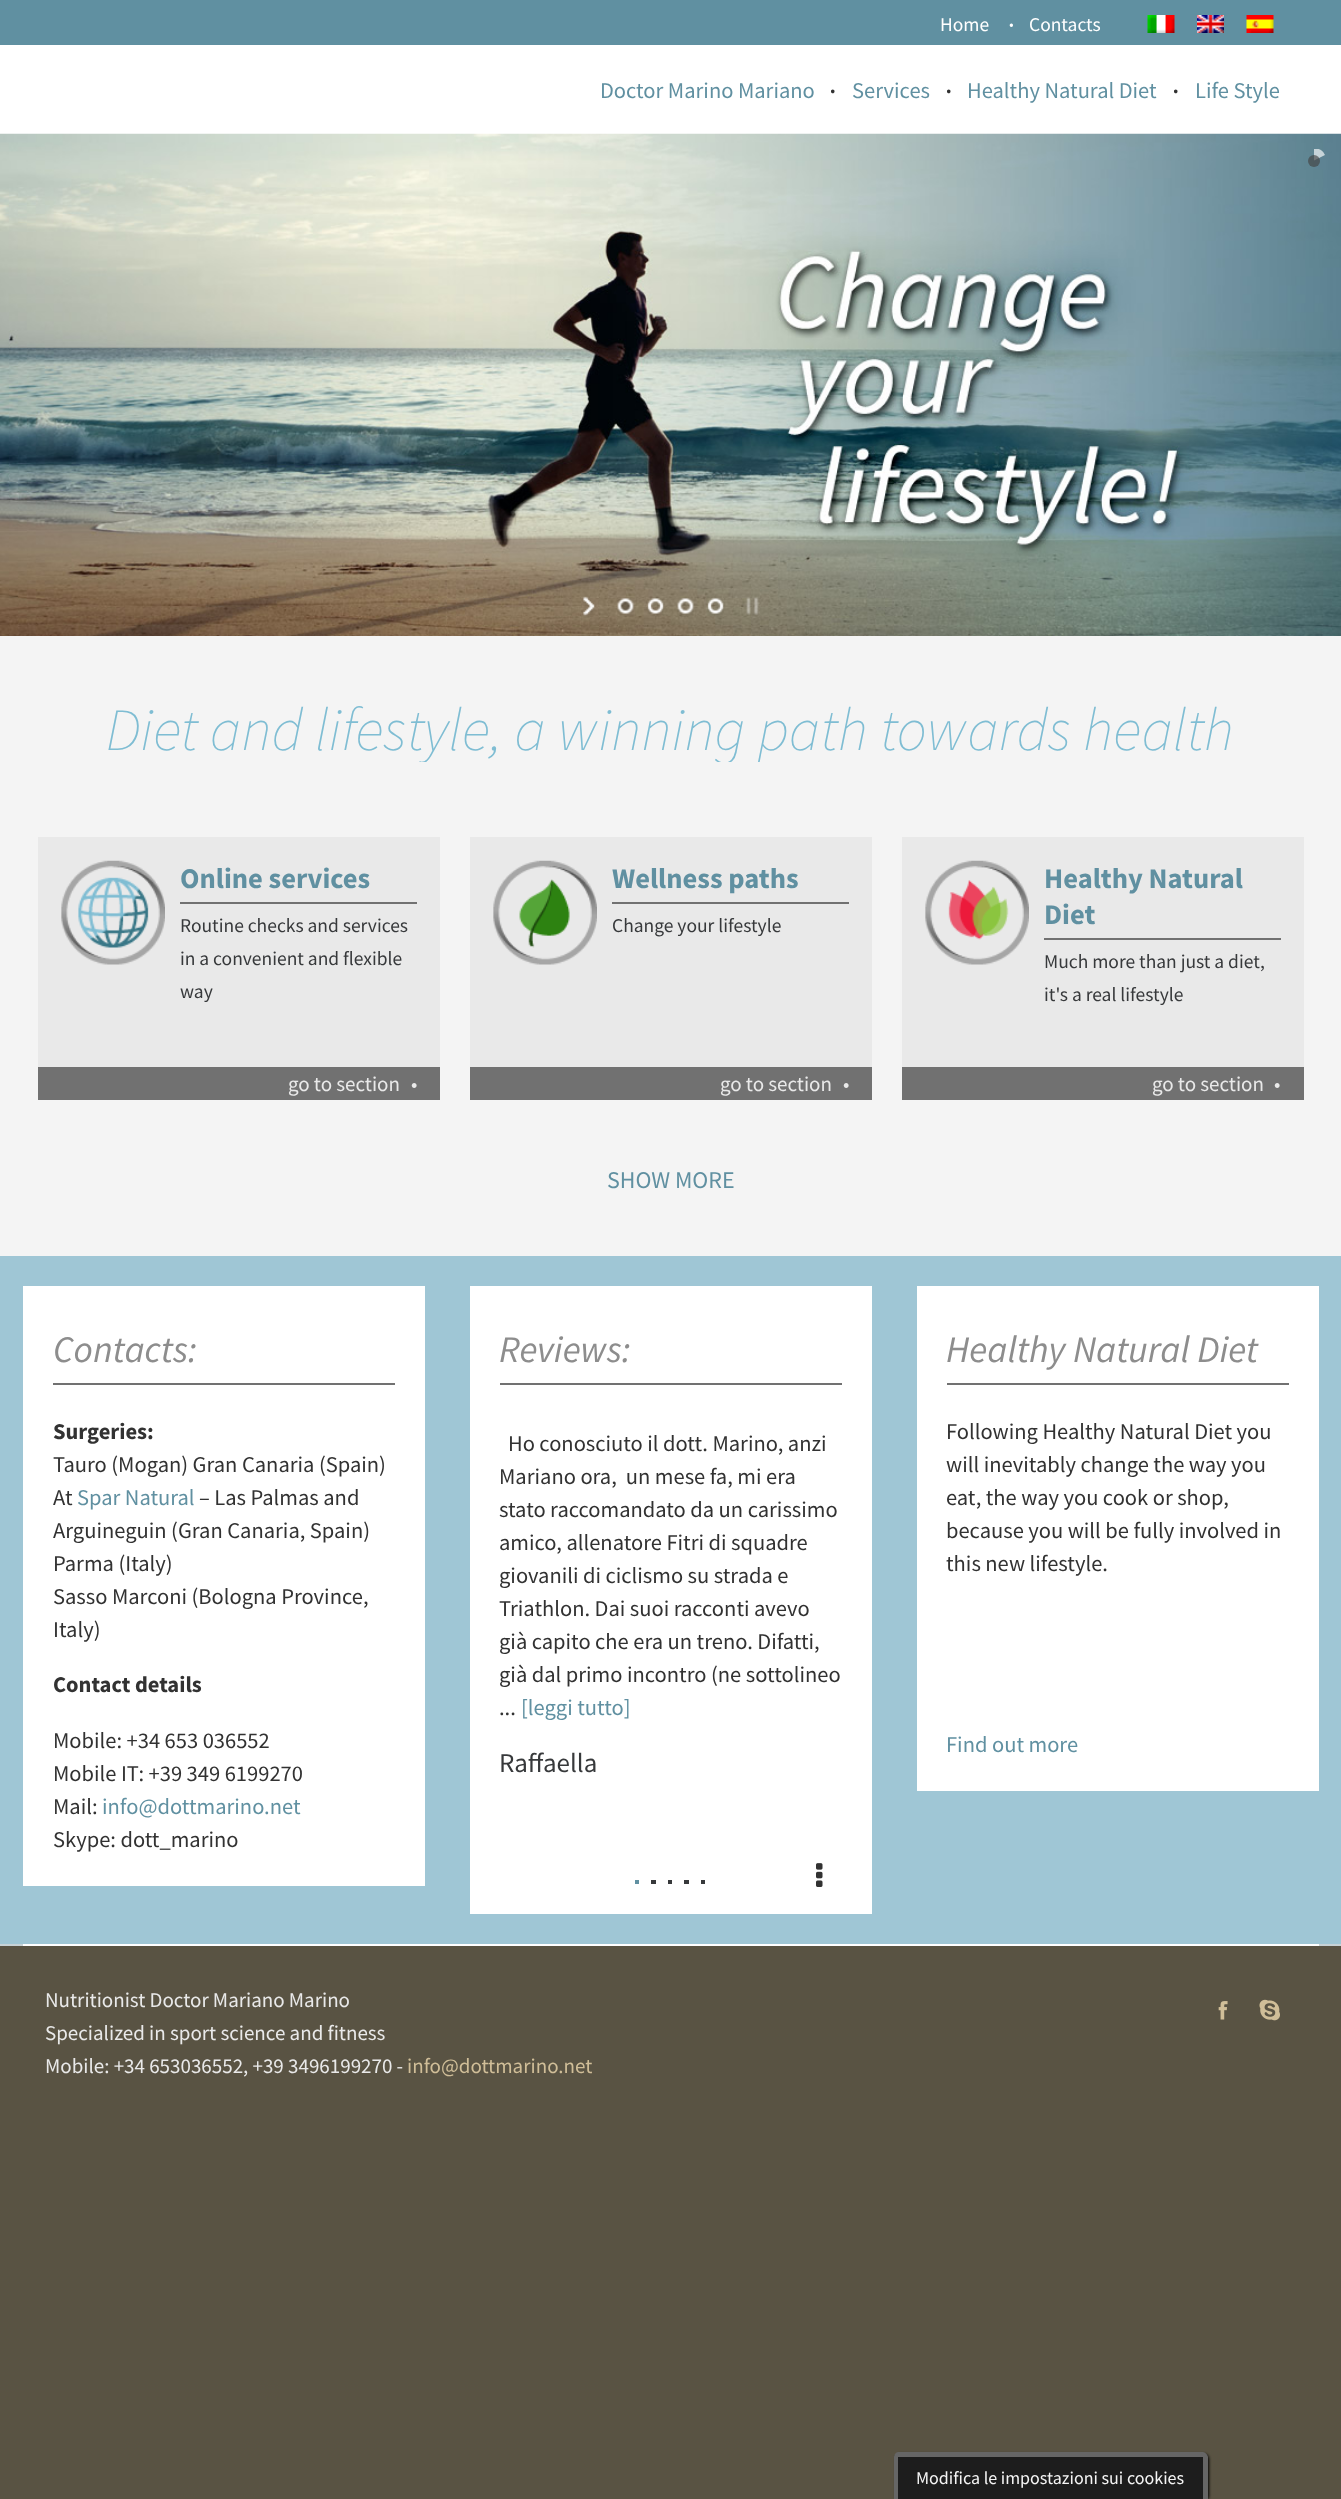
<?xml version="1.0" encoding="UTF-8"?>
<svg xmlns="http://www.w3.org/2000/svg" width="1341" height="2499">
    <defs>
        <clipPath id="clip1"><rect x="1314" y="149" width="12" height="24"/></clipPath>
        <clipPath id="clip2"><rect x="23" y="696" width="1296" height="66"/></clipPath>
        <filter id="blur1" x="-50%" y="-200%" width="200%" height="500%"><feGaussianBlur stdDeviation="1.5"/></filter>
    </defs>
    <rect width="100%" height="100%" fill="#595343"/>
    <rect x="0" y="45" width="1341" height="89" fill="#FFFFFF"/>
    <rect x="0" y="0" width="1341" height="45" fill="#6090A1"/>
    <text x="940" y="31" font-family="Source Sans Pro" font-size="19.5" fill="#FFFFFF">Home</text>
    <text x="1008" y="34" font-family="Source Sans Pro" font-size="27" fill="#FFFFFF">·</text>
    <text x="1029" y="31" font-family="Source Sans Pro" font-size="19.5" fill="#FFFFFF">Contacts</text>
    <image x="1147" y="15" width="28" height="18" href="img_01.png"/>
    <image x="1197" y="15" width="27" height="18" href="img_02.png"/>
    <image x="1246" y="15" width="28" height="18" href="img_03.png"/>
    <text x="600" y="98" font-family="Source Sans Pro" font-size="22.5" fill="#6090A1">Doctor Marino Mariano</text>
    <text x="829" y="101" font-family="Source Sans Pro" font-size="30" fill="#323232">·</text>
    <text x="852" y="98" font-family="Source Sans Pro" font-size="22.5" fill="#6090A1">Services</text>
    <text x="945" y="101" font-family="Source Sans Pro" font-size="30" fill="#323232">·</text>
    <text x="967" y="98" font-family="Source Sans Pro" font-size="22.5" fill="#6090A1">Healthy Natural Diet</text>
    <text x="1172" y="101" font-family="Source Sans Pro" font-size="30" fill="#323232">·</text>
    <text x="1195" y="98" font-family="Source Sans Pro" font-size="22.5" fill="#6090A1">Life Style</text>
    <image x="0" y="133" width="1341" height="503" href="img_04.png"/>
    <g clip-path="url(#clip1)">
        <path d="M 1302 163.5 C 1299 151.5 1316 143 1323.5 152.5 L 1325 155 L 1303 166 Z" fill="#FFFFFF" fill-opacity="0.65"/>
    </g>
    <circle cx="1314" cy="161" r="6" fill="#444444" fill-opacity="0.65"/>
    <image x="583" y="596" width="12" height="22" href="img_05.png"/>
    <image x="617" y="598" width="17" height="19" href="img_06.png"/>
    <image x="647" y="598" width="17" height="19" href="img_07.png"/>
    <image x="677" y="598" width="17" height="19" href="img_08.png"/>
    <image x="707" y="598" width="17" height="19" href="img_09.png"/>
    <image x="746" y="597" width="13" height="18" href="img_10.png"/>
    <rect x="0" y="1944" width="1341" height="2" fill="#C7D2D6"/>
    <rect x="23" y="1944" width="1296" height="2" fill="#FFFFFF"/>
    <rect x="0" y="636" width="1341" height="620" fill="#F4F4F4"/>
    <g clip-path="url(#clip2)">
        <text x="106" y="750" font-family="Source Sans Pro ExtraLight" font-size="60" font-weight="200" font-style="italic" fill="#7FBDD3">Diet and lifestyle, a winning path towards health</text>
    </g>
    <rect x="38" y="837" width="402" height="230" fill="#E9E9E9"/>
    <image x="61" y="860" width="104" height="105" href="img_11.png"/>
    <rect x="180" y="902" width="237" height="2" fill="#717171"/>
    <text x="180" y="888" font-family="Source Sans Pro" font-size="28.5" font-weight="700" fill="#6090A1">Online services</text>
    <text font-family="Source Sans Pro" font-size="19.5" fill="#37393B">
        <tspan x="180" y="932">Routine checks and services</tspan>
        <tspan x="180" y="965">in a convenient and flexible</tspan>
        <tspan x="180" y="998">way</tspan>
    </text>
    <rect x="38" y="1067" width="402" height="33" fill="#717171"/>
    <text x="288" y="1091" font-family="Source Sans Pro" font-size="21" fill="#E9E9E9">go to section</text>
    <text x="411" y="1091" font-family="Source Sans Pro" font-size="21" fill="#E9E9E9">•</text>
    <rect x="470" y="837" width="402" height="230" fill="#E9E9E9"/>
    <image x="493" y="860" width="104" height="105" href="img_12.png"/>
    <rect x="612" y="902" width="237" height="2" fill="#717171"/>
    <text x="612" y="888" font-family="Source Sans Pro" font-size="28.5" font-weight="700" fill="#6090A1">Wellness paths</text>
    <text x="612" y="932" font-family="Source Sans Pro" font-size="19.5" fill="#37393B">Change your lifestyle</text>
    <rect x="470" y="1067" width="402" height="33" fill="#717171"/>
    <text x="720" y="1091" font-family="Source Sans Pro" font-size="21" fill="#E9E9E9">go to section</text>
    <text x="843" y="1091" font-family="Source Sans Pro" font-size="21" fill="#E9E9E9">•</text>
    <rect x="902" y="837" width="402" height="230" fill="#E9E9E9"/>
    <image x="925" y="860" width="104" height="105" href="img_13.png"/>
    <rect x="1044" y="938" width="237" height="2" fill="#717171"/>
    <text font-family="Source Sans Pro" font-size="28.5" font-weight="700" fill="#6090A1">
        <tspan x="1044" y="888">Healthy Natural</tspan>
        <tspan x="1044" y="924">Diet</tspan>
    </text>
    <text font-family="Source Sans Pro" font-size="19.5" fill="#37393B">
        <tspan x="1044" y="968">Much more than just a diet,</tspan>
        <tspan x="1044" y="1001">it's a real lifestyle</tspan>
    </text>
    <rect x="902" y="1067" width="402" height="33" fill="#717171"/>
    <text x="1152" y="1091" font-family="Source Sans Pro" font-size="21" fill="#E9E9E9">go to section</text>
    <text x="1274" y="1091" font-family="Source Sans Pro" font-size="21" fill="#E9E9E9">•</text>
    <text x="607" y="1188" font-family="Source Sans Pro" font-size="24" fill="#6090A1">SHOW MORE</text>
    <rect x="0" y="1256" width="1341" height="688" fill="#9FC6D5"/>
    <rect x="23" y="1286" width="402" height="600" fill="#FFFFFF"/>
    <rect x="53" y="1383" width="342" height="2" fill="#717171"/>
    <text x="53" y="1362" font-family="Source Sans Pro" font-size="37.5" font-style="italic" fill="#8D8D8D">Contacts:</text>
    <text x="53" y="1439" font-family="Source Sans Pro" font-size="22.5" font-weight="700" fill="#323232">Surgeries:</text>
    <text font-family="Source Sans Pro" font-size="22.5" fill="#323232">
        <tspan x="53" y="1472">Tauro (Mogan) Gran Canaria (Spain)</tspan>
        <tspan x="53" y="1505">At</tspan>
    </text>
    <text x="77" y="1505" font-family="Source Sans Pro" font-size="22.5" fill="#6090A1">Spar Natural</text>
    <text x="199" y="1505" font-family="Source Sans Pro" font-size="22.5" fill="#323232">– Las Palmas and</text>
    <text font-family="Source Sans Pro" font-size="22.5" fill="#323232">
        <tspan x="53" y="1538">Arguineguin (Gran Canaria, Spain)</tspan>
        <tspan x="53" y="1571">Parma (Italy)</tspan>
        <tspan x="53" y="1604">Sasso Marconi (Bologna Province,</tspan>
        <tspan x="53" y="1637">Italy)</tspan>
    </text>
    <text x="53" y="1692" font-family="Source Sans Pro" font-size="22.5" font-weight="700" fill="#323232">Contact details</text>
    <text font-family="Source Sans Pro" font-size="22.5" fill="#323232">
        <tspan x="53" y="1748">Mobile: +34 653 036552</tspan>
        <tspan x="53" y="1781">Mobile IT: +39 349 6199270</tspan>
        <tspan x="53" y="1814">Mail:</tspan>
    </text>
    <text x="102" y="1814" font-family="Source Sans Pro" font-size="22.5" fill="#6090A1">info@dottmarino.net</text>
    <text x="53" y="1847" font-family="Source Sans Pro" font-size="22.5" fill="#323232">Skype: dott_marino</text>
    <rect x="470" y="1286" width="402" height="628" fill="#FFFFFF"/>
    <rect x="500" y="1383" width="342" height="2" fill="#717171"/>
    <text x="499" y="1362" font-family="Source Sans Pro" font-size="37.5" font-style="italic" fill="#8D8D8D">Reviews:</text>
    <text x="508" y="1451" font-family="Source Sans Pro" font-size="22.5" fill="#323232">Ho conosciuto il dott. Marino, anzi</text>
    <text font-family="Source Sans Pro" font-size="22.5" fill="#323232" xml:space="preserve"><tspan x="499" y="1484">Mariano ora,  un mese fa, mi era</tspan><tspan x="499" y="1517">stato raccomandato da un carissimo</tspan><tspan x="499" y="1550">amico, allenatore Fitri di squadre</tspan><tspan x="499" y="1583">giovanili di ciclismo su strada e</tspan><tspan x="499" y="1616">Triathlon. Dai suoi racconti avevo</tspan><tspan x="499" y="1649">già capito che era un treno. Difatti,</tspan><tspan x="499" y="1682">già dal primo incontro (ne sottolineo</tspan><tspan x="499" y="1715">...</tspan></text>
    <text x="521" y="1715" font-family="Source Sans Pro" font-size="22.5" fill="#6090A1">[leggi tutto]</text>
    <text x="499" y="1772" font-family="Source Sans Pro" font-size="27" fill="#37393B">Raffaella</text>
    <rect x="635" y="1880" width="4" height="4" fill="#6090A1"/>
    <rect x="651" y="1880" width="5" height="4" fill="#37393B"/>
    <rect x="668" y="1880" width="4" height="4" fill="#37393B"/>
    <rect x="684" y="1880" width="5" height="4" fill="#37393B"/>
    <rect x="701" y="1880" width="4" height="4" fill="#37393B"/>
    <image x="816" y="1863" width="7" height="24" href="img_14.png"/>
    <rect x="917" y="1286" width="402" height="505" fill="#FFFFFF"/>
    <rect x="947" y="1383" width="342" height="2" fill="#717171"/>
    <text x="946" y="1362" font-family="Source Sans Pro" font-size="37.5" font-style="italic" fill="#8D8D8D">Healthy Natural Diet</text>
    <text font-family="Source Sans Pro" font-size="22.5" fill="#323232">
        <tspan x="946" y="1439">Following Healthy Natural Diet you</tspan>
        <tspan x="946" y="1472">will inevitably change the way you</tspan>
        <tspan x="946" y="1505">eat, the way you cook or shop,</tspan>
        <tspan x="946" y="1538">because you will be fully involved in</tspan>
        <tspan x="946" y="1571">this new lifestyle.</tspan>
    </text>
    <text x="946" y="1752" font-family="Source Sans Pro" font-size="22.5" fill="#6090A1">Find out more</text>
    <text font-family="Source Sans Pro" font-size="21" fill="#E9E9E9">
        <tspan x="45" y="2007">Nutritionist Doctor Mariano Marino</tspan>
        <tspan x="45" y="2040">Specialized in sport science and fitness</tspan>
        <tspan x="45" y="2073">Mobile: +34 653036552, +39 3496199270 -</tspan>
    </text>
    <text x="407" y="2073" font-family="Source Sans Pro" font-size="21" fill="#D0BE98">info@dottmarino.net</text>
    <image x="1218" y="2001" width="10" height="19" href="img_15.png"/>
    <image x="1259" y="1999" width="21" height="22" href="img_16.png"/>
    <rect x="896" y="2454" width="313" height="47" rx="5" fill="#000000" filter="url(#blur1)"/>
    <path d="M 899 2453 H 1203 C 1206 2453 1208 2455 1208 2458 V 2499 H 894 V 2458 C 894 2455 896 2453 899 2453 Z" fill="#1D1D1D"/>
    <path d="M 898 2452 H 1203 C 1205 2452 1208 2455 1208 2457 V 2499 H 894 V 2457 C 894 2455 896 2452 898 2452 Z M 898 2457 H 1203 V 2499 H 898 Z" fill="#666666" fill-rule="evenodd"/>
    <text x="916" y="2484" font-family="Source Sans Pro" font-size="18" fill="#F5F5F5">Modifica le impostazioni sui cookies</text>
</svg>
